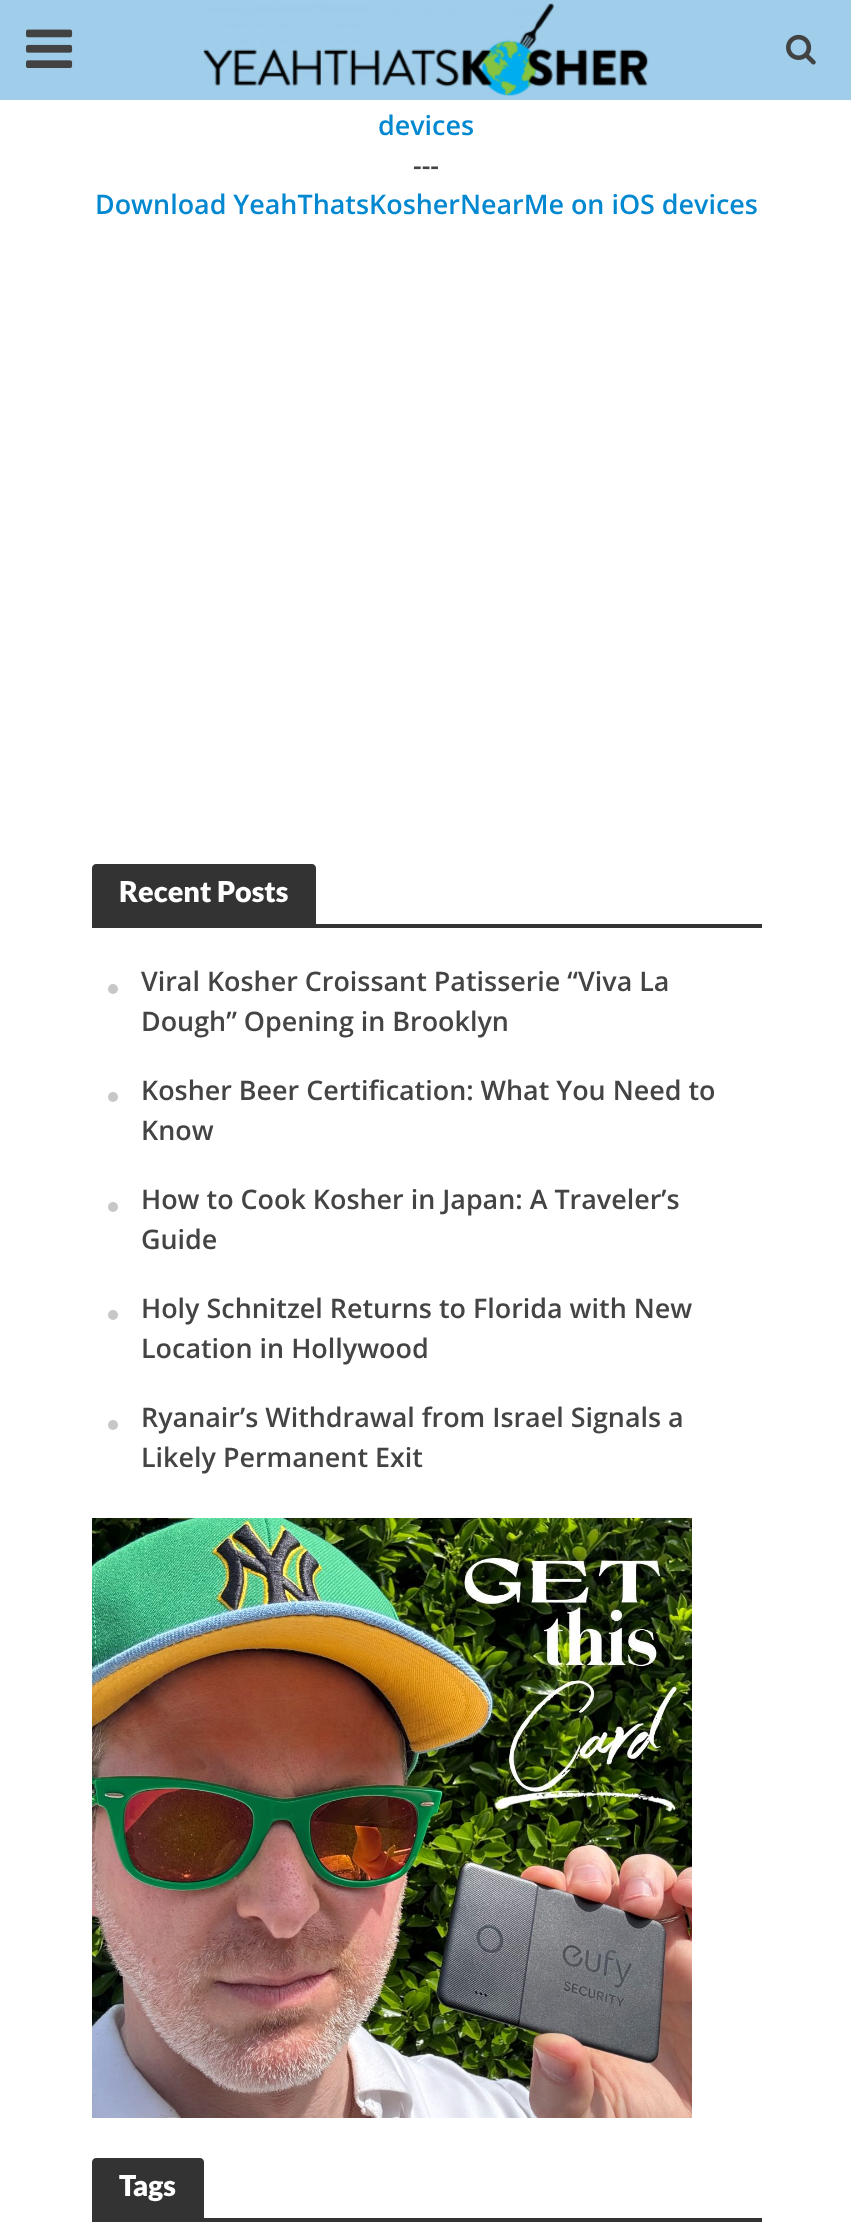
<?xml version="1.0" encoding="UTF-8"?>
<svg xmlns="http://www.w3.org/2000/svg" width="851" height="2240">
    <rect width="100%" height="100%" fill="#FFFFFF"/>
    <rect x="0" y="0" width="851" height="100" fill="#9FCDEA"/>
    <image x="26" y="29" width="47" height="39" href="img_01.png"/>
    <image x="203" y="3" width="446" height="93" href="img_02.png"/>
    <image x="786" y="34" width="30" height="31" href="img_03.png"/>
    <text x="378" y="135" font-family="Open Sans" font-size="26.9" font-weight="600" fill="#0288D1">devices</text>
    <text x="413" y="175" font-family="Open Sans" font-size="26.9" font-weight="600" fill="#444444">---</text>
    <text x="95" y="214" font-family="Open Sans" font-size="26.9" font-weight="600" fill="#0288D1">Download YeahThatsKosherNearMe on iOS devices</text>
    <path d="M 96 864 H 312 C 314 864 316 866 316 868 V 924 H 92 V 868 C 92 866 94 864 96 864 Z" fill="#333333"/>
    <text x="119" y="902" font-family="Lato" font-size="28.75" font-weight="900" fill="#FFFFFF">Recent Posts</text>
    <rect x="92" y="924" width="670" height="4" fill="#333333"/>
    <circle cx="113" cy="989" r="5" fill="#C7C7C7"/>
    <text font-family="Open Sans" font-size="26.9" font-weight="600" fill="#444444">
        <tspan x="141" y="991">Viral Kosher Croissant Patisserie “Viva La</tspan>
        <tspan x="141" y="1031">Dough” Opening in Brooklyn</tspan>
    </text>
    <circle cx="113" cy="1097" r="5" fill="#C7C7C7"/>
    <text font-family="Open Sans" font-size="26.9" font-weight="600" fill="#444444">
        <tspan x="141" y="1100">Kosher Beer Certification: What You Need to</tspan>
        <tspan x="141" y="1140">Know</tspan>
    </text>
    <circle cx="113" cy="1207" r="5" fill="#C7C7C7"/>
    <text font-family="Open Sans" font-size="26.9" font-weight="600" fill="#444444">
        <tspan x="141" y="1209">How to Cook Kosher in Japan: A Traveler’s</tspan>
        <tspan x="141" y="1249">Guide</tspan>
    </text>
    <circle cx="113" cy="1315" r="5" fill="#C7C7C7"/>
    <text font-family="Open Sans" font-size="26.9" font-weight="600" fill="#444444">
        <tspan x="141" y="1318">Holy Schnitzel Returns to Florida with New</tspan>
        <tspan x="141" y="1358">Location in Hollywood</tspan>
    </text>
    <circle cx="113" cy="1425" r="5" fill="#C7C7C7"/>
    <text font-family="Open Sans" font-size="26.9" font-weight="600" fill="#444444">
        <tspan x="141" y="1427">Ryanair’s Withdrawal from Israel Signals a</tspan>
        <tspan x="141" y="1467">Likely Permanent Exit</tspan>
    </text>
    <image x="92" y="1518" width="600" height="600" href="img_04.png"/>
    <path d="M 96 2158 H 200 C 202 2158 204 2160 204 2162 V 2218 H 92 V 2162 C 92 2160 94 2158 96 2158 Z" fill="#333333"/>
    <text x="119" y="2196" font-family="Lato" font-size="28.75" font-weight="900" fill="#FFFFFF">Tags</text>
    <rect x="92" y="2218" width="670" height="4" fill="#333333"/>
</svg>
